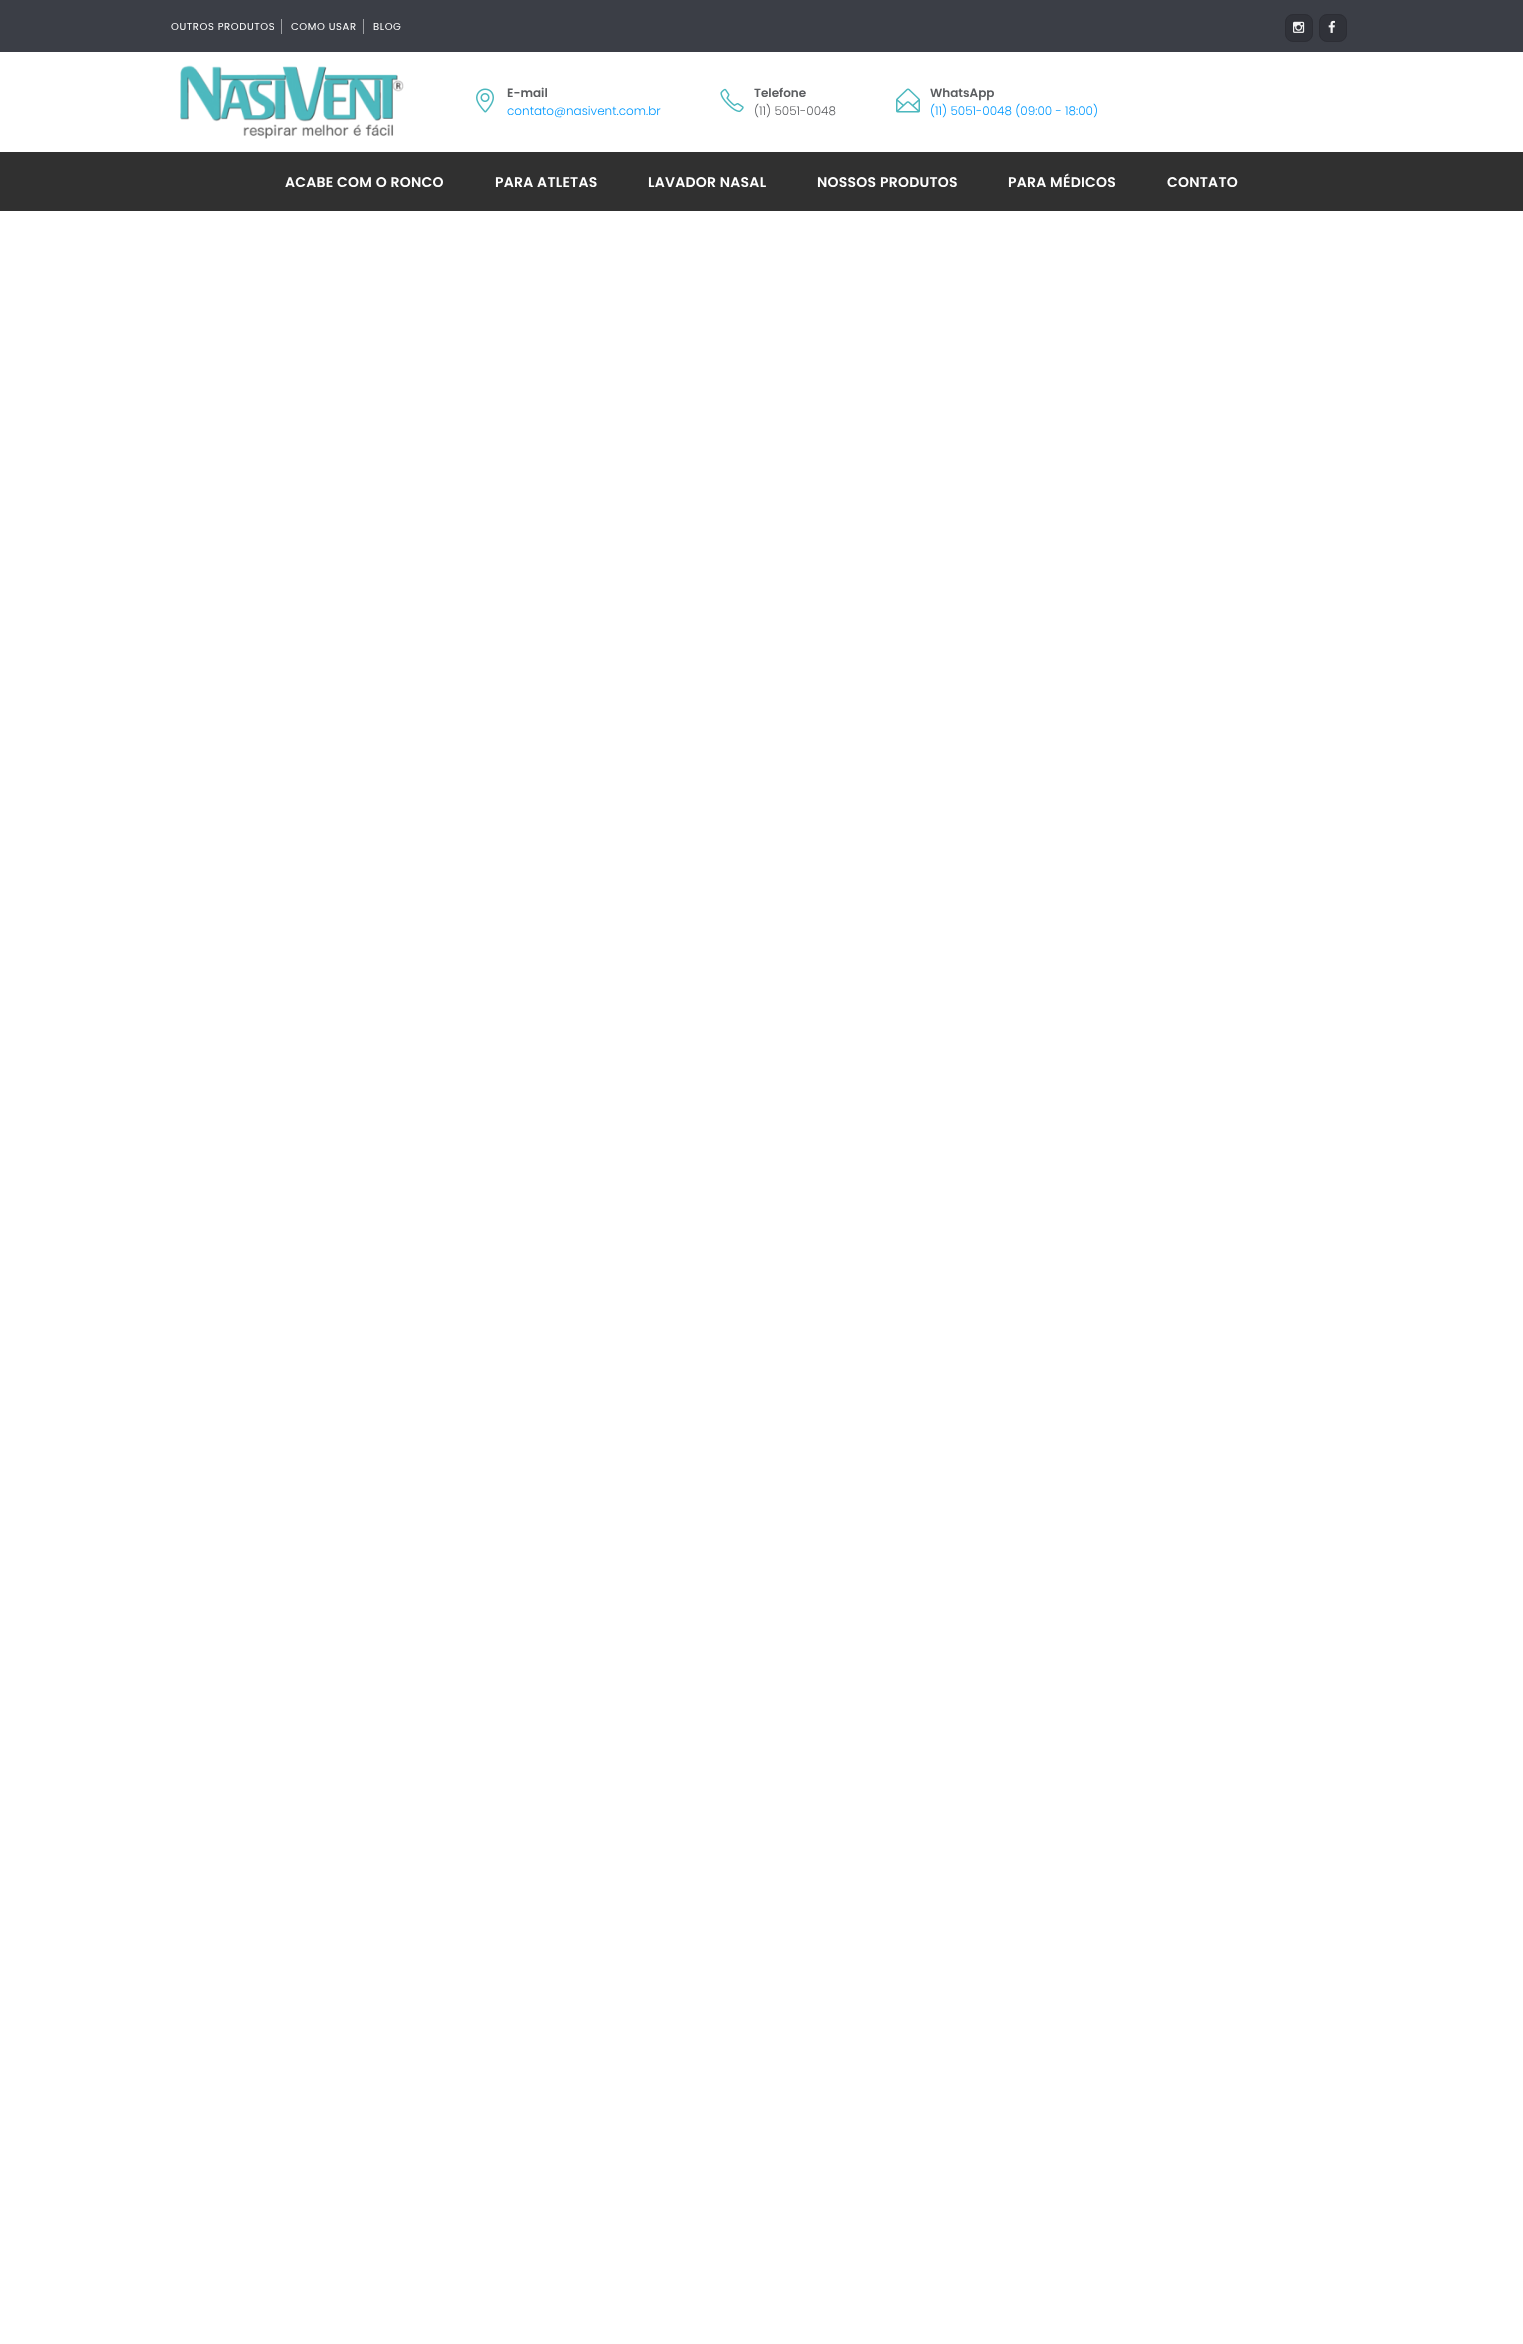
<?xml version="1.0" encoding="UTF-8"?>
<svg xmlns="http://www.w3.org/2000/svg" width="1523" height="2344">
    <rect width="100%" height="100%" fill="#FFFFFF"/>
    <rect x="0" y="0" width="1523" height="52" fill="#3B3E46"/>
    <text x="171" y="30" font-family="Poppins" font-size="10" letter-spacing="0.6" fill="#FFFFFF">OUTROS PRODUTOS</text>
    <rect x="281" y="19" width="1" height="15" fill="#9D9FA3"/>
    <text x="291" y="30" font-family="Poppins" font-size="10" letter-spacing="0.6" fill="#FFFFFF">COMO USAR</text>
    <rect x="363" y="19" width="1" height="15" fill="#9D9FA3"/>
    <text x="373" y="30" font-family="Poppins" font-size="10" letter-spacing="0.6" fill="#FFFFFF">BLOG</text>
    <rect x="1285.5" y="14.5" width="27" height="27" rx="7.5" fill="#303239" stroke="#2C2D34"/>
    <image x="1293" y="21" width="12" height="12" href="img_01.png"/>
    <rect x="1319.5" y="14.5" width="27" height="27" rx="7.5" fill="#303239" stroke="#2C2D34"/>
    <image x="1328" y="20" width="7" height="13" href="img_02.png"/>
    <image x="180" y="65" width="224" height="74" href="img_03.png"/>
    <image x="476" y="88" width="18" height="25" href="img_04.png"/>
    <text x="507" y="97" font-family="Poppins" font-size="12" font-weight="600" fill="#5B5D60">E-mail</text>
    <text x="507" y="115" font-family="Poppins" font-size="12" font-weight="300" fill="#0099FF">contato@nasivent.com.br</text>
    <image x="720" y="88" width="24" height="25" href="img_05.png"/>
    <text x="754" y="97" font-family="Poppins" font-size="12" font-weight="600" fill="#5B5D60">Telefone</text>
    <text x="754" y="115" font-family="Poppins" font-size="12" font-weight="300" fill="#5B5D60">(11) 5051-0048</text>
    <image x="896" y="88" width="24" height="25" href="img_06.png"/>
    <text x="930" y="97" font-family="Poppins" font-size="12" font-weight="600" fill="#5B5D60">WhatsApp</text>
    <text x="930" y="115" font-family="Poppins" font-size="12" font-weight="300" fill="#0099FF">(11) 5051-0048 (09:00 - 18:00)</text>
    <rect x="0" y="152" width="1523" height="59" fill="#303030"/>
    <text x="285" y="187" font-family="Poppins" font-size="14" font-weight="600" letter-spacing="0.25" fill="#FFFFFF">ACABE COM O RONCO</text>
    <text x="495" y="187" font-family="Poppins" font-size="14" font-weight="600" letter-spacing="0.25" fill="#FFFFFF">PARA ATLETAS</text>
    <text x="648" y="187" font-family="Poppins" font-size="14" font-weight="600" letter-spacing="0.25" fill="#FFFFFF">LAVADOR NASAL</text>
    <text x="817" y="187" font-family="Poppins" font-size="14" font-weight="600" letter-spacing="0.25" fill="#FFFFFF">NOSSOS PRODUTOS</text>
    <text x="1008" y="187" font-family="Poppins" font-size="14" font-weight="600" letter-spacing="0.25" fill="#FFFFFF">PARA MÉDICOS</text>
    <text x="1167" y="187" font-family="Poppins" font-size="14" font-weight="600" letter-spacing="0.25" fill="#FFFFFF">CONTATO</text>
</svg>
